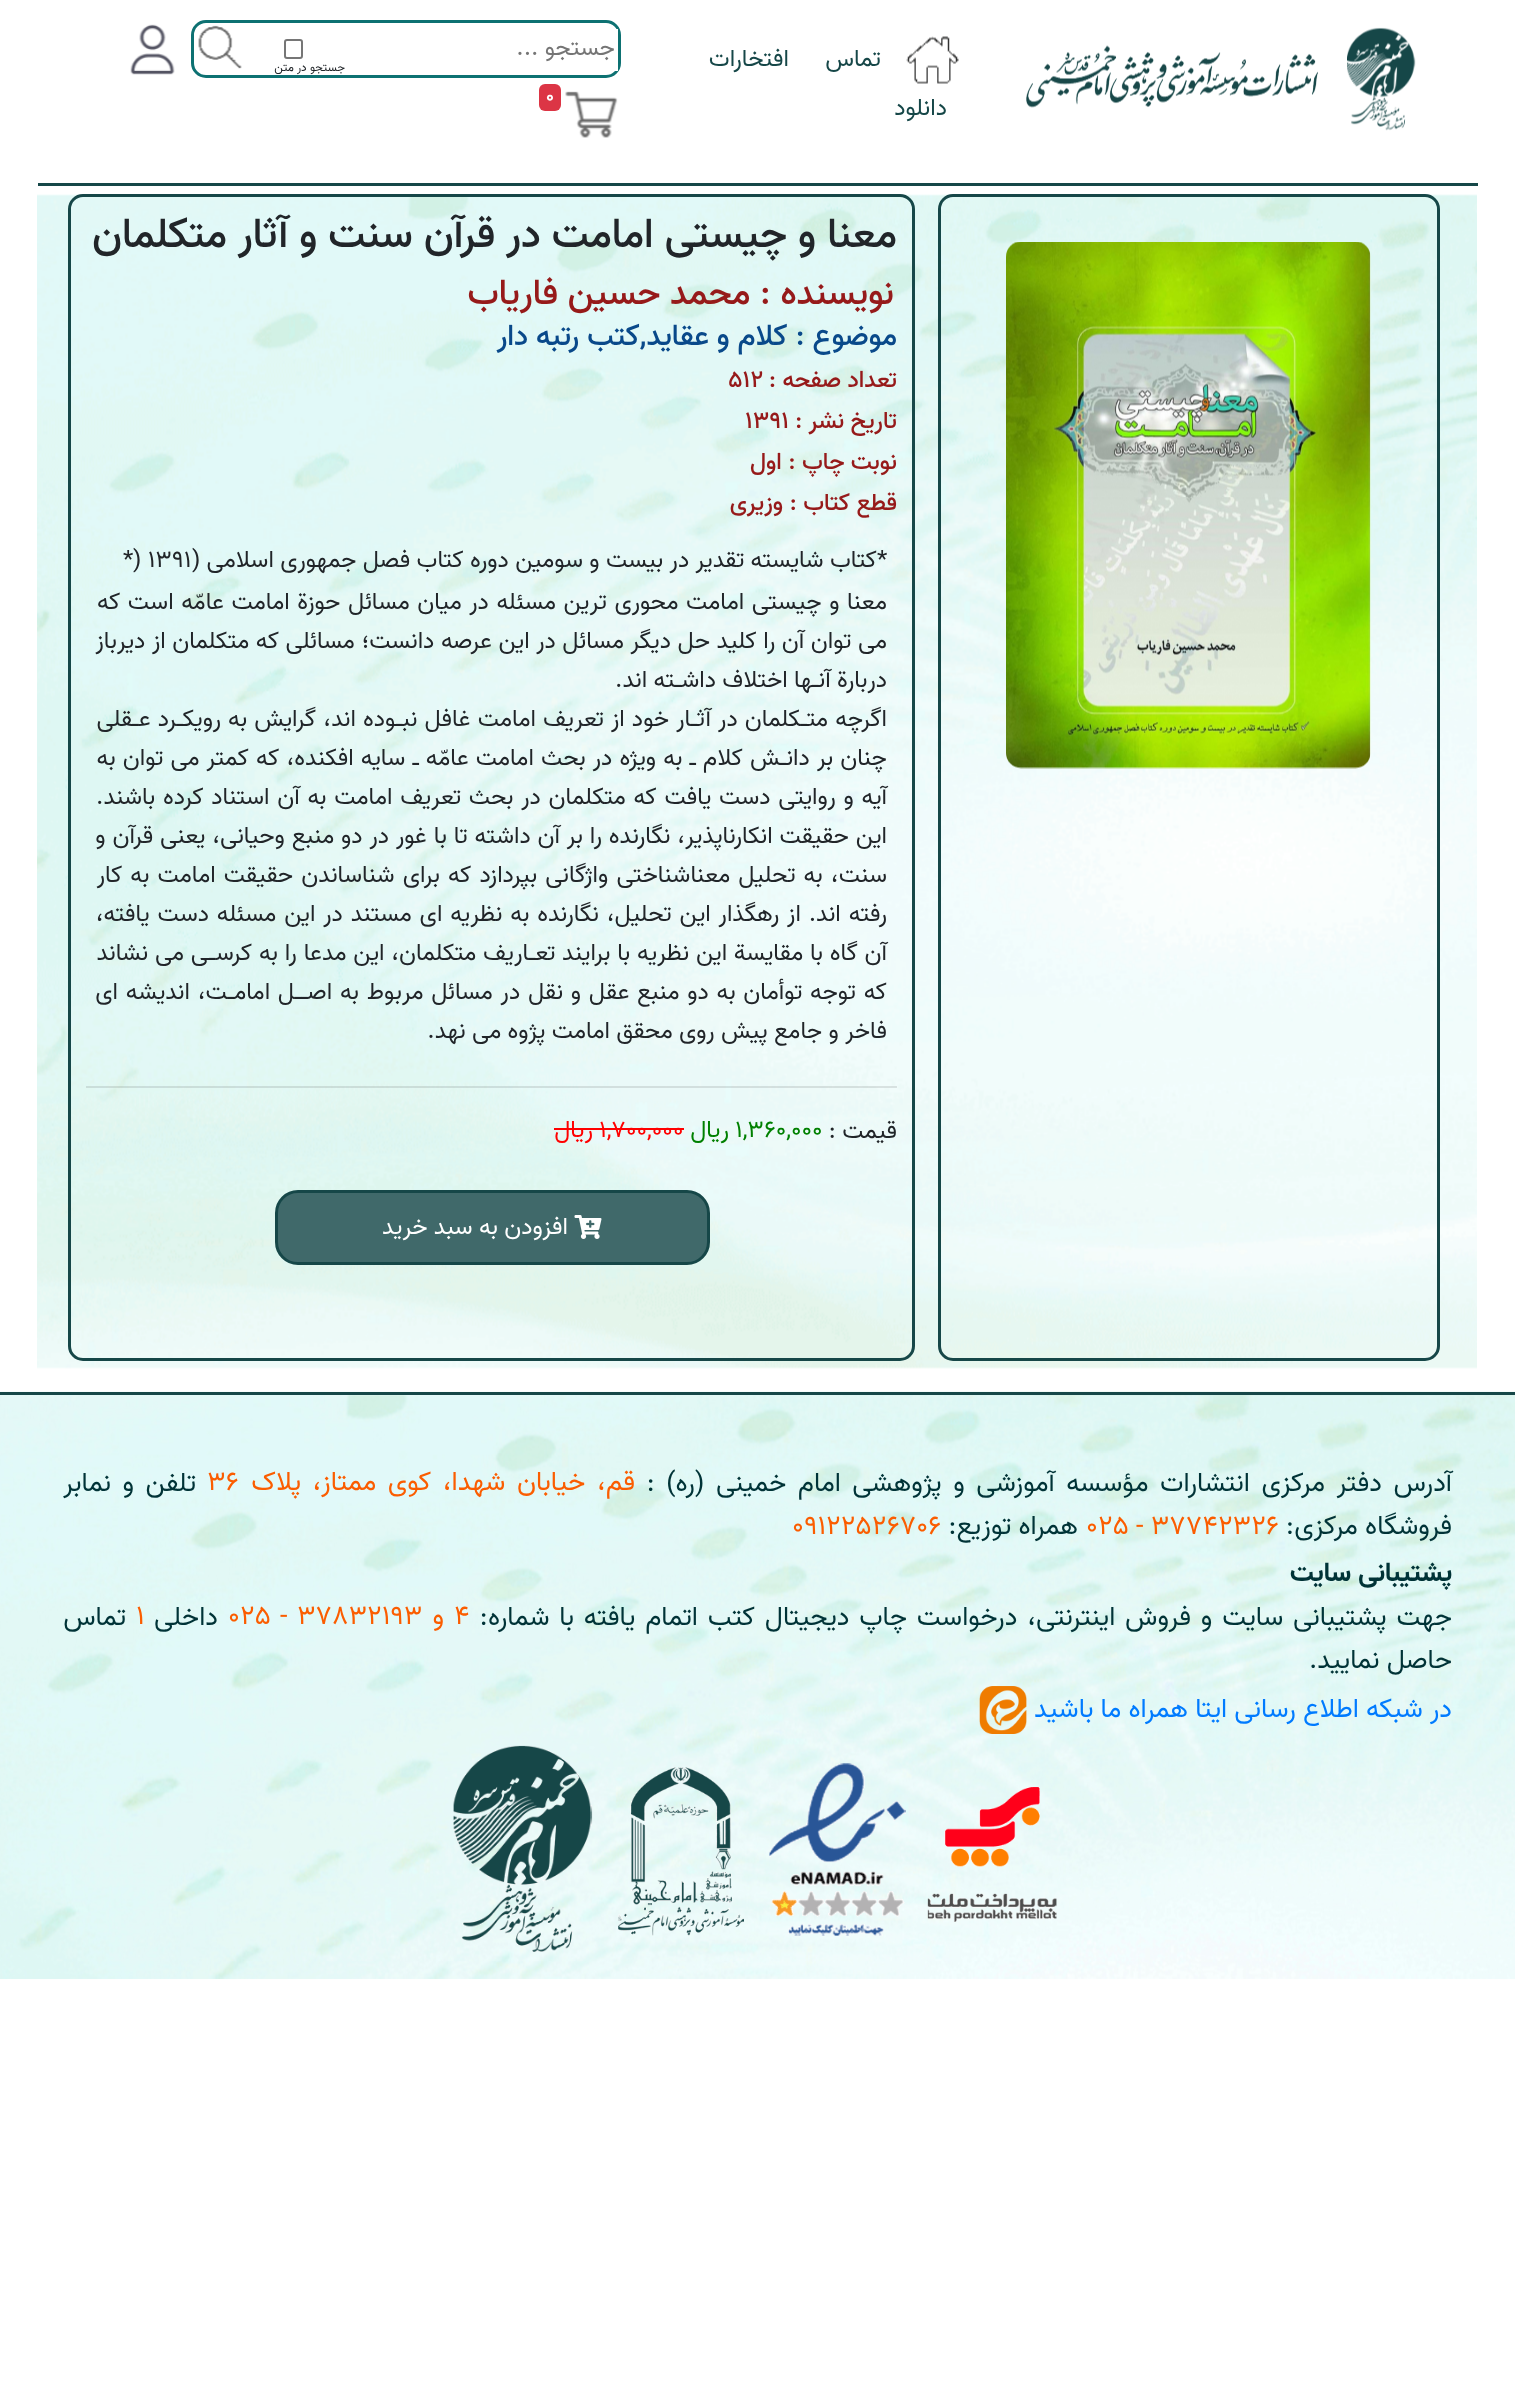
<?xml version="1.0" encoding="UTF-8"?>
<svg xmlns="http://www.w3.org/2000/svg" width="1515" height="2402">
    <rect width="100%" height="100%" fill="#FFFFFF"/>
    <image x="1347" y="27" width="69" height="104" href="img_01.png"/>
    <image x="1026" y="45" width="292" height="63" href="img_02.png"/>
    <image x="906" y="36" width="53" height="48" href="img_03.png"/>
    <text x="881" y="66" font-family="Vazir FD" font-size="24" direction="rtl" fill="#164748">تماس</text>
    <text x="789" y="66" font-family="Vazir FD" font-size="24" direction="rtl" fill="#164748">افتخارات</text>
    <text x="947" y="115" font-family="Vazir FD" font-size="24" direction="rtl" fill="#164748">دانلود</text>
    <rect x="192.5" y="21.5" width="427" height="55" rx="13.5" fill="none" stroke="#0D7172" stroke-width="3"/>
    <rect x="615" y="29" width="3" height="42" fill="#FFFFFF"/>
    <text x="615" y="55" font-family="Vazir FD" font-size="24" direction="rtl" fill="#757575">جستجو ...</text>
    <rect x="285" y="40" width="17" height="18" rx="2" fill="none" stroke="#767676" stroke-width="2"/>
    <image x="198" y="25" width="44" height="44" href="img_04.png"/>
    <text x="345" y="71" font-family="Vazir FD" font-size="12" direction="rtl" fill="#212529">جستجو در متن</text>
    <image x="130" y="24" width="45" height="51" href="img_05.png"/>
    <image x="565" y="91" width="53" height="47" href="img_06.png"/>
    <rect x="539" y="84" width="22" height="27" rx="6" fill="#DC3545"/>
    <text x="546" y="102" font-family="Vazir FD" font-size="18" font-weight="700" fill="#FFFFFF">0</text>
    <image x="37" y="194" width="1440" height="1175" href="img_07.png"/>
    <rect x="38" y="183" width="1440" height="3" fill="#164748"/>
    <rect x="939.5" y="195.5" width="499" height="1164" rx="13.5" fill="none" stroke="#164748" stroke-width="3"/>
    <image x="1006" y="242" width="365" height="527" href="img_08.png"/>
    <rect x="69.5" y="195.5" width="844" height="1164" rx="13.5" fill="none" stroke="#164748" stroke-width="3"/>
    <text x="897" y="247" font-family="Vazir FD" font-size="42" font-weight="500" direction="rtl" fill="#212529">معنا و چیستی امامت در قرآن سنت و آثار متکلمان</text>
    <text x="894" y="304" font-family="Vazir FD" font-size="36" font-weight="500" direction="rtl" fill="#961A1A">نویسنده : محمد حسین فاریاب</text>
    <text x="897" y="345" font-family="Vazir FD" font-size="30" font-weight="500" direction="rtl" fill="#09498A">موضوع : کلام و عقاید,کتب رتبه دار</text>
    <text x="897" y="387" font-family="Vazir FD" font-size="24" font-weight="500" direction="rtl" fill="#961A1A">تعداد صفحه :</text>
    <text x="728" y="387" font-family="Vazir FD" font-size="24" font-weight="500" fill="#961A1A">512</text>
    <text x="897" y="428" font-family="Vazir FD" font-size="24" font-weight="500" direction="rtl" fill="#961A1A">تاريخ نشر :</text>
    <text x="745" y="428" font-family="Vazir FD" font-size="24" font-weight="500" fill="#961A1A">1391</text>
    <text font-family="Vazir FD" font-size="24" font-weight="500" direction="rtl" fill="#961A1A">
        <tspan x="897" y="469">نوبت چاپ : اول</tspan>
        <tspan x="897" y="510">قطع كتاب : وزیری</tspan>
    </text>
    <text x="877" y="567" font-family="Vazir FD" font-size="24" fill="#212529">*</text>
    <text x="877" y="567" font-family="Vazir FD" font-size="24" direction="rtl" fill="#212529">کتاب شایسته تقدیر در بیست و سومین دوره کتاب فصل جمهوری اسلامی (</text>
    <text x="133" y="567" font-family="Vazir FD" font-size="24" fill="#212529">) 1391</text>
    <text x="123" y="567" font-family="Vazir FD" font-size="24" fill="#212529">*</text>
    <text font-family="Vazir FD" font-size="24" direction="rtl" fill="#212529">
        <tspan x="887" y="609" word-spacing="1.25">معنا و چیستی امامت محوری ترین مسئله در میان مسائل حوزة امامت عامّه است که</tspan>
        <tspan x="887" y="648" word-spacing="0.2">می توان آن را کلید حل دیگر مسائل در این عرصه دانست؛ مسائلی که متکلمان از دیرباز</tspan>
        <tspan x="887" y="687">دربارة آنـها اختلاف داشـته اند.</tspan>
        <tspan x="887" y="726" word-spacing="0.75">اگرچه متـکلمان در آثـار خود از تعریف امامت غافل نبـوده اند، گرایش به رویکـرد عـقلی</tspan>
        <tspan x="887" y="765" word-spacing="0.75">چنان بر دانـش کلام ـ به ویژه در بحث امامت عامّه ـ سایه افکنده، که کمتر می توان به</tspan>
        <tspan x="887" y="804" word-spacing="1.4">آیه و روایتی دست یافت که متکلمان در بحث تعریف امامت به آن استناد کرده باشند.</tspan>
        <tspan x="887" y="843" word-spacing="0.5">این حقیقت انکارناپذیر، نگارنده را بر آن داشته تا با غور در دو منبع وحیانی، یعنی قرآن و</tspan>
        <tspan x="887" y="882" word-spacing="1.75">سنت، به تحلیل معناشناختی واژگانی بپردازد که برای شناساندن حقیقت امامت به کار</tspan>
        <tspan x="887" y="921" word-spacing="1.5">رفته اند. از رهگذار این تحلیل، نگارنده به نظریه ای مستند در این مسئله دست یافته،</tspan>
        <tspan x="887" y="960" word-spacing="0.4">آن گاه با مقایسة این نظریه با برایند تعـاریف متکلمان، این مدعا را به کرسـی می نشاند</tspan>
        <tspan x="887" y="999" word-spacing="1.4">که توجه توأمان به دو منبع عقل و نقل در مسائل مربوط به اصــل امامـت، اندیشه ای</tspan>
        <tspan x="887" y="1038">فاخر و جامع پیش روی محقق امامت پژوه می نهد.</tspan>
    </text>
    <rect x="86" y="1086" width="811" height="2" fill="#000000" fill-opacity="0.1"/>
    <text x="897" y="1138" font-family="Vazir FD" font-size="24" direction="rtl" fill="#212529">قیمت :</text>
    <text x="735" y="1137" font-family="Vazir FD" font-size="24" fill="#008000">1,360,000</text>
    <text x="729" y="1137" font-family="Vazir FD" font-size="24" direction="rtl" fill="#008000">ریال</text>
    <text x="599" y="1137" font-family="Vazir FD" font-size="24" fill="#FF0000">1,700,000</text>
    <rect x="554" y="1128" width="45" height="2" fill="#FF0000"/>
    <rect x="599" y="1128" width="85" height="2" fill="#FF0000"/>
    <text x="593" y="1137" font-family="Vazir FD" font-size="24" direction="rtl" fill="#FF0000">ریال</text>
    <rect x="276.5" y="1191.5" width="432" height="72" rx="21.5" fill="#40696A" stroke="#164748" stroke-width="3"/>
    <image x="574" y="1215" width="28" height="24" href="img_09.png"/>
    <text x="568" y="1234" font-family="Vazir FD" font-size="24" direction="rtl" fill="#FFFFFF">افزودن به سبد خرید</text>
    <image x="0" y="1391" width="1515" height="588" href="img_10.png"/>
    <rect x="0" y="1392" width="1515" height="3" fill="#164748"/>
    <text x="1452" y="1491" word-spacing="4.4" font-family="Vazir FD" font-size="27" direction="rtl" fill="#003337">آدرس دفتر مرکزی انتشارات مؤسسه آموزشی و پژوهشی امام خمینی (ره) :</text>
    <text x="635" y="1490" word-spacing="4.4" font-family="Vazir FD" font-size="27" direction="rtl" fill="#FB5D00">قم، خیابان شهدا، کوی ممتاز، پلاک</text>
    <text x="207" y="1490" font-family="Vazir FD" font-size="27" fill="#FB5D00">36</text>
    <text x="196" y="1491" word-spacing="4.4" font-family="Vazir FD" font-size="27" direction="rtl" fill="#003337">تلفن و نمابر</text>
    <text x="1452" y="1534" font-family="Vazir FD" font-size="27" direction="rtl" fill="#003337">فروشگاه مرکزی:</text>
    <text x="1086" y="1534" font-family="Vazir FD" font-size="27" fill="#FB5D00">025 - 37742326</text>
    <text x="1078" y="1534" font-family="Vazir FD" font-size="27" direction="rtl" fill="#003337">همراه توزیع:</text>
    <text x="792" y="1534" font-family="Vazir FD" font-size="27" fill="#FB5D00">09122526706</text>
    <text x="1452" y="1581" font-family="Vazir FD" font-size="27" font-weight="700" direction="rtl" fill="#003337">پشتیبانی سایت</text>
    <text x="1452" y="1625" word-spacing="2.6" font-family="Vazir FD" font-size="27" direction="rtl" fill="#003337">جهت پشتیبانی سایت و فروش اینترنتی، درخواست چاپ دیجیتال کتب اتمام یافته با شماره:</text>
    <text x="454" y="1624" font-family="Vazir FD" font-size="27" fill="#FB5D00">4</text>
    <text x="444" y="1624" font-family="Vazir FD" font-size="27" direction="rtl" fill="#FB5D00">و</text>
    <text x="297" y="1624" font-family="Vazir FD" font-size="27" fill="#FB5D00">37832193</text>
    <text x="280" y="1624" font-family="Vazir FD" font-size="27" fill="#FB5D00">-</text>
    <text x="228" y="1624" font-family="Vazir FD" font-size="27" fill="#FB5D00">025</text>
    <text x="218" y="1625" font-family="Vazir FD" font-size="27" direction="rtl" fill="#003337">داخلی</text>
    <text x="136" y="1624" font-family="Vazir FD" font-size="27" fill="#FB5D00">1</text>
    <text x="126" y="1625" font-family="Vazir FD" font-size="27" direction="rtl" fill="#003337">تماس</text>
    <text x="1452" y="1668" font-family="Vazir FD" font-size="27" direction="rtl" fill="#003337">حاصل نمایید.</text>
    <text x="1452" y="1717" font-family="Vazir FD" font-size="27" direction="rtl" fill="#007BFF">در شبکه اطلاع رسانی ایتا همراه ما باشید</text>
    <image x="979" y="1686" width="48" height="48" href="img_11.png"/>
    <image x="927" y="1787" width="130" height="135" href="img_12.png"/>
    <image x="769" y="1763" width="137" height="173" href="img_13.png"/>
    <image x="618" y="1767" width="126" height="169" href="img_14.png"/>
    <image x="453" y="1745" width="140" height="207" href="img_15.png"/>
</svg>
